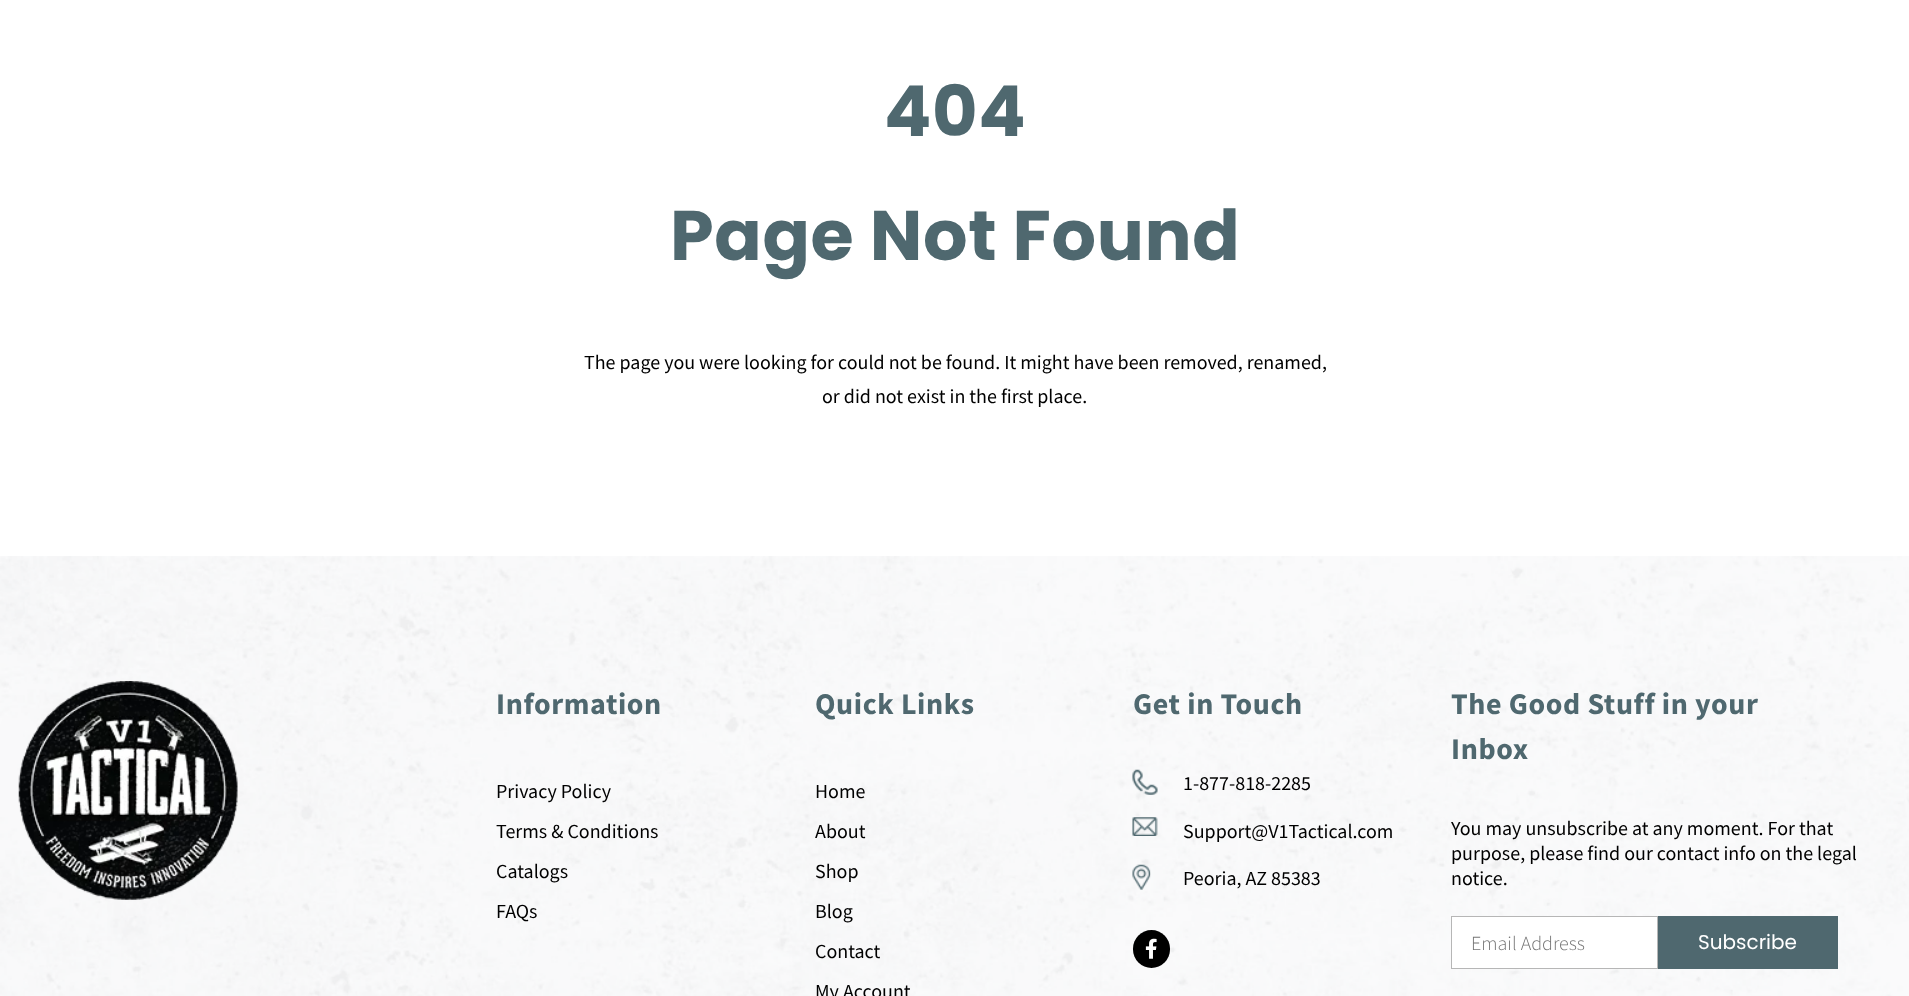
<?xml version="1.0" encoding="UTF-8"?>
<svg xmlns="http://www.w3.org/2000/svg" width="1909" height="996">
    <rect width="100%" height="100%" fill="#FFFFFF"/>
    <text x="884" y="136" font-family="Poppins" font-size="70" font-weight="700" letter-spacing="0.6" fill="#4F686F">404</text>
    <text x="670" y="260" font-family="Poppins" font-size="70" font-weight="700" letter-spacing="0.6" fill="#4F686F">Page Not Found</text>
    <text x="584" y="369" font-family="Source Sans Pro" font-size="20" fill="#000000">The page you were looking for could not be found. It might have been removed, renamed,</text>
    <text x="822" y="403" font-family="Source Sans Pro" font-size="20" fill="#000000">or did not exist in the first place.</text>
    <image x="0" y="556" width="1909" height="440" href="img_01.png"/>
    <image x="18" y="681" width="220" height="219" href="img_02.png"/>
    <text x="496" y="714" font-family="Source Sans Pro" font-size="30" font-weight="700" letter-spacing="0.6" fill="#4F686F">Information</text>
    <text x="496" y="798" font-family="Source Sans Pro" font-size="20" fill="#000000">Privacy Policy</text>
    <text x="496" y="838" font-family="Source Sans Pro" font-size="20" fill="#000000">Terms &amp; Conditions</text>
    <text x="496" y="878" font-family="Source Sans Pro" font-size="20" fill="#000000">Catalogs</text>
    <text x="496" y="918" font-family="Source Sans Pro" font-size="20" fill="#000000">FAQs</text>
    <text x="815" y="714" font-family="Source Sans Pro" font-size="30" font-weight="700" letter-spacing="0.6" fill="#4F686F">Quick Links</text>
    <text x="815" y="798" font-family="Source Sans Pro" font-size="20" fill="#000000">Home</text>
    <text x="815" y="838" font-family="Source Sans Pro" font-size="20" fill="#000000">About</text>
    <text x="815" y="878" font-family="Source Sans Pro" font-size="20" fill="#000000">Shop</text>
    <text x="815" y="918" font-family="Source Sans Pro" font-size="20" fill="#000000">Blog</text>
    <text x="815" y="958" font-family="Source Sans Pro" font-size="20" fill="#000000">Contact</text>
    <text x="815" y="998" font-family="Source Sans Pro" font-size="20" fill="#000000">My Account</text>
    <text x="1133" y="714" font-family="Source Sans Pro" font-size="30" font-weight="700" letter-spacing="0.6" fill="#4F686F">Get in Touch</text>
    <image x="1132" y="769" width="26" height="26" href="img_03.png"/>
    <text x="1183" y="790" font-family="Source Sans Pro" font-size="20" fill="#000000">1-877-818-2285</text>
    <image x="1132" y="817" width="26" height="19" href="img_04.png"/>
    <text x="1183" y="838" font-family="Source Sans Pro" font-size="20" fill="#000000">Support@V1Tactical.com</text>
    <image x="1132" y="864" width="19" height="26" href="img_05.png"/>
    <text x="1183" y="885" font-family="Source Sans Pro" font-size="20" fill="#000000">Peoria, AZ 85383</text>
    <rect x="1133" y="930" width="37" height="38" rx="18.5" fill="#000000"/>
    <image x="1145" y="938" width="12" height="21" href="img_06.png"/>
    <text font-family="Source Sans Pro" font-size="30" font-weight="700" letter-spacing="0.6" fill="#4F686F">
        <tspan x="1451" y="714">The Good Stuff in your</tspan>
        <tspan x="1451" y="759">Inbox</tspan>
    </text>
    <text font-family="Source Sans Pro" font-size="20" fill="#000000">
        <tspan x="1451" y="835">You may unsubscribe at any moment. For that</tspan>
        <tspan x="1451" y="860">purpose, please find our contact info on the legal</tspan>
        <tspan x="1451" y="885">notice.</tspan>
    </text>
    <rect x="1451.5" y="916.5" width="206" height="52" fill="#FFFFFF" stroke="#B6B6B6"/>
    <text x="1471" y="950" font-family="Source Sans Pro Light" font-size="20" font-weight="300" fill="#757575">Email Address</text>
    <rect x="1658" y="916" width="180" height="53" fill="#4F686F"/>
    <text x="1698" y="949" font-family="Poppins" font-size="20" fill="#FFFFFF">Subscribe</text>
</svg>
